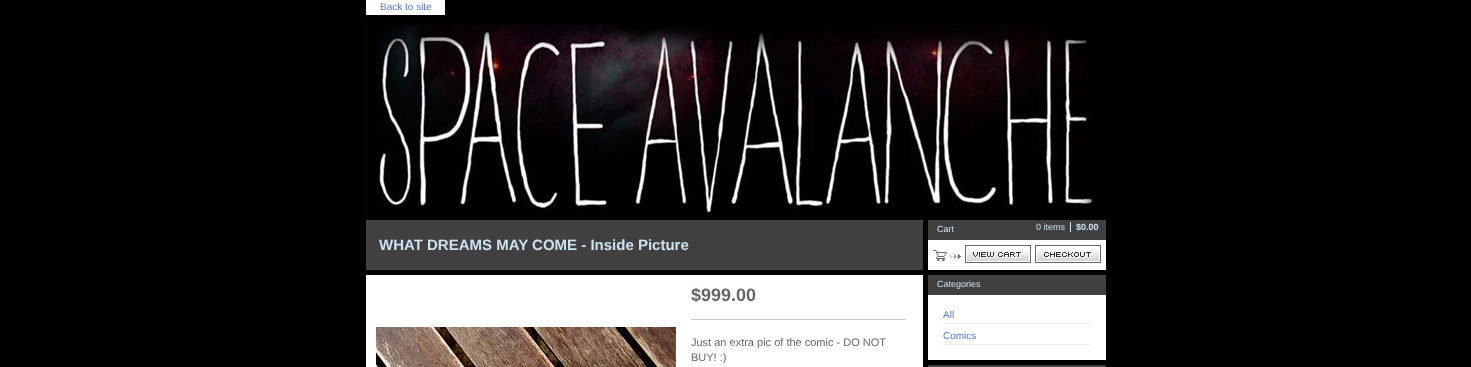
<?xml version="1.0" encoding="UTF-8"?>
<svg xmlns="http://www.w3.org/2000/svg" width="1471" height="367">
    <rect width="100%" height="100%" fill="#000000"/>
    <rect x="366" y="0" width="79" height="15" fill="#FFFFFF"/>
    <text x="380" y="10" font-family="Liberation Sans" font-size="10" fill="#5575DD">Back to site</text>
    <image x="366" y="20" width="728" height="195" href="img_01.png"/>
    <rect x="366" y="220" width="557" height="50" fill="#404040"/>
    <text x="379" y="250" font-family="Liberation Sans" font-size="15" font-weight="700" fill="#CDE2F0">WHAT DREAMS MAY COME - Inside Picture</text>
    <rect x="366" y="275" width="557" height="92" fill="#FFFFFF"/>
    <image x="376" y="327" width="300" height="40" href="img_02.png"/>
    <rect x="691" y="319" width="215" height="1" fill="#CCCCCC"/>
    <text x="691" y="301" font-family="Liberation Sans" font-size="18" font-weight="700" fill="#666666">$999.00</text>
    <text font-family="Liberation Sans" font-size="11" fill="#666666">
        <tspan x="691" y="346">Just an extra pic of the comic - DO NOT</tspan>
        <tspan x="691" y="361">BUY! :)</tspan>
    </text>
    <rect x="928" y="240" width="178" height="30" fill="#FFFFFF"/>
    <image x="933" y="250" width="28" height="11" href="img_03.png"/>
    <rect x="928" y="220" width="178" height="20" fill="#404040"/>
    <text x="937" y="232" font-family="Liberation Sans" font-size="9" fill="#CDE2F0">Cart</text>
    <text x="1036" y="230" font-family="Liberation Sans" font-size="9" fill="#CDE2F0">0 items</text>
    <rect x="1070" y="222" width="1" height="10" fill="#CDE2F0"/>
    <text x="1076" y="230" font-family="Liberation Sans" font-size="9" font-weight="700" fill="#CDE2F0">$0.00</text>
    <image x="965" y="245" width="66" height="18" href="img_04.png"/>
    <image x="1035" y="245" width="66" height="18" href="img_05.png"/>
    <rect x="928" y="295" width="178" height="65" fill="#FFFFFF"/>
    <rect x="928" y="275" width="178" height="20" fill="#404040"/>
    <text x="937" y="287" font-family="Liberation Sans" font-size="9" fill="#CDE2F0">Categories</text>
    <rect x="943" y="323" width="148" height="1" fill="#EFEFEF"/>
    <text x="943" y="318" font-family="Liberation Sans" font-size="10" fill="#5575DD">All</text>
    <rect x="943" y="344" width="148" height="1" fill="#EFEFEF"/>
    <text x="943" y="339" font-family="Liberation Sans" font-size="10" fill="#5575DD">Comics</text>
    <rect x="928" y="365" width="178" height="2" fill="#404040"/>
</svg>
